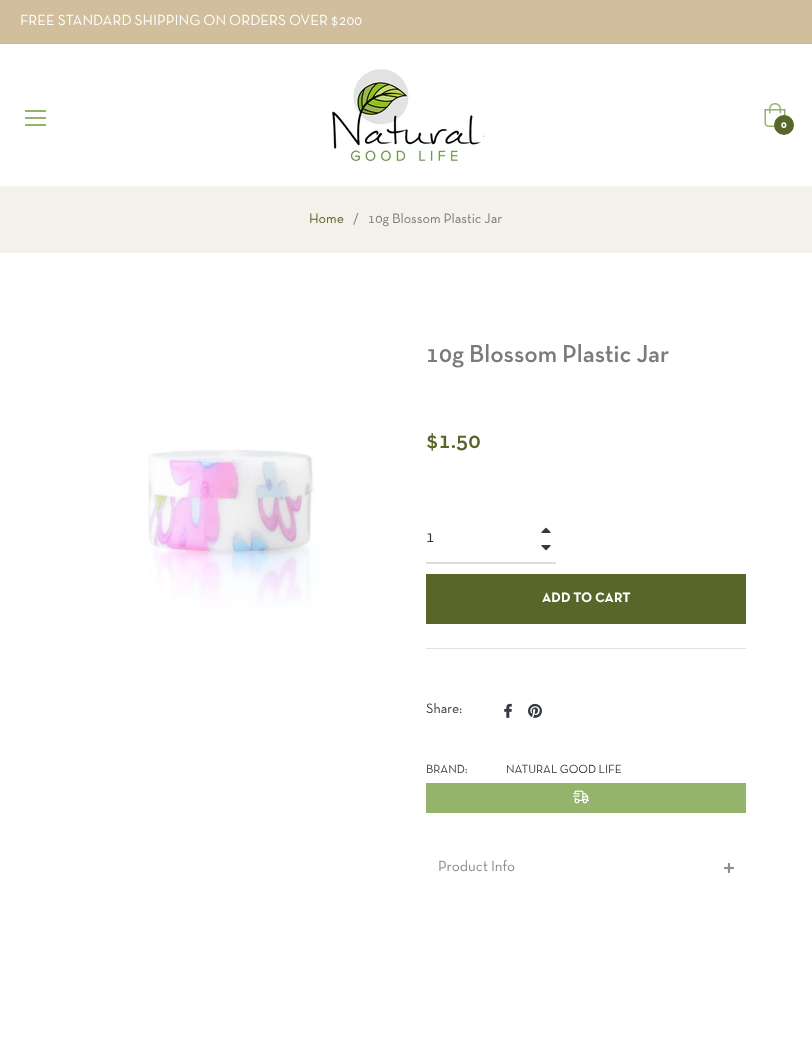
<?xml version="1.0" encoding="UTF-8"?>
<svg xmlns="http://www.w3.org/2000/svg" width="812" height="1044">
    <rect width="100%" height="100%" fill="#FFFFFF"/>
    <rect x="0" y="0" width="812" height="43" fill="#D1BE9C"/>
    <rect x="0" y="43" width="812" height="1" fill="#C8B799"/>
    <text x="20" y="25" font-family="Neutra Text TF" font-size="15" fill="#FFFFFF">FREE STANDARD SHIPPING ON ORDERS OVER $200</text>
    <rect x="25" y="110" width="21" height="2" fill="#94B46C"/>
    <rect x="25" y="117" width="21" height="2" fill="#94B46C"/>
    <rect x="25" y="124" width="21" height="2" fill="#94B46C"/>
    <image x="332" y="69" width="156" height="95" href="img_01.png"/>
    <image x="764" y="103" width="22" height="24" href="img_02.png"/>
    <circle cx="784" cy="125" r="10" fill="#58662A"/>
    <text x="781" y="128" font-family="Neutra Text TF" font-size="11" font-weight="700" fill="#FFFFFF">0</text>
    <rect x="0" y="186" width="812" height="67" fill="#F4F1EB"/>
    <text x="309" y="223" font-family="Neutra Text TF" font-size="14" fill="#58662A">Home</text>
    <text x="353" y="223" font-family="Neutra Text TF" font-size="14" fill="#7B7B7B">/</text>
    <text x="368" y="223" font-family="Neutra Text TF" font-size="14" fill="#7B7B7B">10g Blossom Plastic Jar</text>
    <image x="148" y="449" width="174" height="158" href="img_03.png"/>
    <text x="426" y="362" font-family="Neutra Text TF" font-size="25" font-weight="500" fill="#7B7B7B">10g Blossom Plastic Jar</text>
    <text x="426" y="448" font-family="Neutra Text TF" font-size="24" font-weight="500" fill="#58662A">$1.50</text>
    <image x="541" y="527" width="10" height="6" href="img_04.png"/>
    <rect x="426" y="562" width="130" height="2" fill="#DDDDDD"/>
    <text x="426" y="542" font-family="Neutra Text TF" font-size="17" fill="#333333">1</text>
    <image x="541" y="545" width="10" height="6" href="img_05.png"/>
    <rect x="426" y="574" width="320" height="50" fill="#58662A"/>
    <text x="542" y="602" font-family="Neutra Text TF" font-size="14" font-weight="700" fill="#FFFFFF">ADD TO CART</text>
    <rect x="426" y="648" width="320" height="1" fill="#DEE2E6"/>
    <text x="426" y="713" font-family="Neutra Text TF" font-size="14" fill="#343A40">Share:</text>
    <image x="504" y="703" width="8" height="15" href="img_06.png"/>
    <image x="528" y="703" width="14" height="15" href="img_07.png"/>
    <text x="426" y="773" font-family="Neutra Text TF" font-size="12" fill="#343A40">BRAND:</text>
    <text x="506" y="773" font-family="Neutra Text TF" font-size="12" fill="#343A40">NATURAL GOOD LIFE</text>
    <rect x="426" y="783" width="320" height="30" fill="#94B46C"/>
    <image x="573" y="790" width="16" height="14" href="img_08.png"/>
    <text x="438" y="871" font-family="Neutra Text TF" font-size="15" fill="#8D8D8D">Product Info</text>
    <image x="724" y="863" width="10" height="10" href="img_09.png"/>
</svg>
